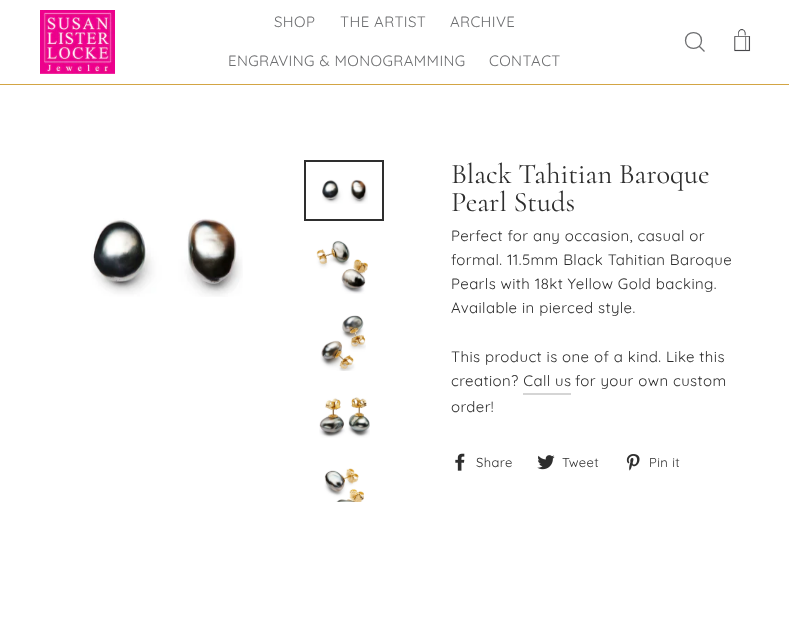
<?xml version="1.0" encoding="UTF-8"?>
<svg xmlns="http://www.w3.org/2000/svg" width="789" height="642">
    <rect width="100%" height="100%" fill="#FFFFFF"/>
    <rect x="0" y="84" width="789" height="1" fill="#D3A544"/>
    <image x="40" y="10" width="75" height="64" href="img_01.png"/>
    <text x="274" y="27" font-family="Quicksand" font-size="15" letter-spacing="0.4" fill="#6D6E70">SHOP</text>
    <text x="340" y="27" font-family="Quicksand" font-size="15" letter-spacing="0.4" fill="#6D6E70">THE ARTIST</text>
    <text x="450" y="27" font-family="Quicksand" font-size="15" letter-spacing="0.4" fill="#6D6E70">ARCHIVE</text>
    <text x="228" y="66" font-family="Quicksand" font-size="15" letter-spacing="0.4" fill="#6D6E70">ENGRAVING &amp; MONOGRAMMING</text>
    <text x="489" y="66" font-family="Quicksand" font-size="15" letter-spacing="0.4" fill="#6D6E70">CONTACT</text>
    <path d="M 701.5 40.5 C 701.5 51 685.5 51 685.5 40.5 C 685.5 30 701.5 30 701.5 40.5 Z M 704.5 51.5 L 699.5 46.5" fill="none" stroke="#6D6E70" stroke-width="1.3"/>
    <image x="734" y="29" width="17" height="23" href="img_02.png"/>
    <image x="91" y="218" width="152" height="79" href="img_03.png"/>
    <rect x="305" y="161" width="78" height="59" fill="none" stroke="#2E2E2E" stroke-width="2"/>
    <image x="322" y="179" width="46" height="25" href="img_04.png"/>
    <image x="316" y="240" width="52" height="54" href="img_05.png"/>
    <image x="320" y="315" width="46" height="56" href="img_06.png"/>
    <image x="319" y="397" width="51" height="41" href="img_07.png"/>
    <image x="324" y="468" width="40" height="34" href="img_08.png"/>
    <text font-family="Cormorant" font-size="28.4" fill="#2E2E2E">
        <tspan x="451" y="183">Black Tahitian Baroque</tspan>
        <tspan x="451" y="211">Pearl Studs</tspan>
    </text>
    <text font-family="Quicksand" font-size="15" letter-spacing="0.4" fill="#2E2E2E">
        <tspan x="451" y="241">Perfect for any occasion, casual or</tspan>
        <tspan x="451" y="265">formal. 11.5mm Black Tahitian Baroque</tspan>
        <tspan x="451" y="289">Pearls with 18kt Yellow Gold backing.</tspan>
        <tspan x="451" y="313">Available in pierced style.</tspan>
    </text>
    <text font-family="Quicksand" font-size="15" letter-spacing="0.4" fill="#2E2E2E">
        <tspan x="451" y="362">This product is one of a kind. Like this</tspan>
        <tspan x="451" y="386">creation? Call us</tspan>
    </text>
    <text x="575" y="386" font-family="Quicksand" font-size="15" letter-spacing="0.4" fill="#2E2E2E">for your own custom</text>
    <rect x="523" y="393" width="48" height="2" fill="#D5D5D5"/>
    <text x="451" y="412" font-family="Quicksand" font-size="15" letter-spacing="0.4" fill="#2E2E2E">order!</text>
    <image x="455" y="453" width="10" height="18" href="img_09.png"/>
    <text x="476" y="467" font-family="Quicksand" font-size="13" letter-spacing="0.4" fill="#2E2E2E">Share</text>
    <image x="537" y="455" width="18" height="15" href="img_10.png"/>
    <text x="562" y="467" font-family="Quicksand" font-size="13" letter-spacing="0.4" fill="#2E2E2E">Tweet</text>
    <image x="626" y="454" width="14" height="17" href="img_11.png"/>
    <text x="649" y="467" font-family="Quicksand" font-size="13" letter-spacing="0.4" fill="#2E2E2E">Pin it</text>
</svg>
